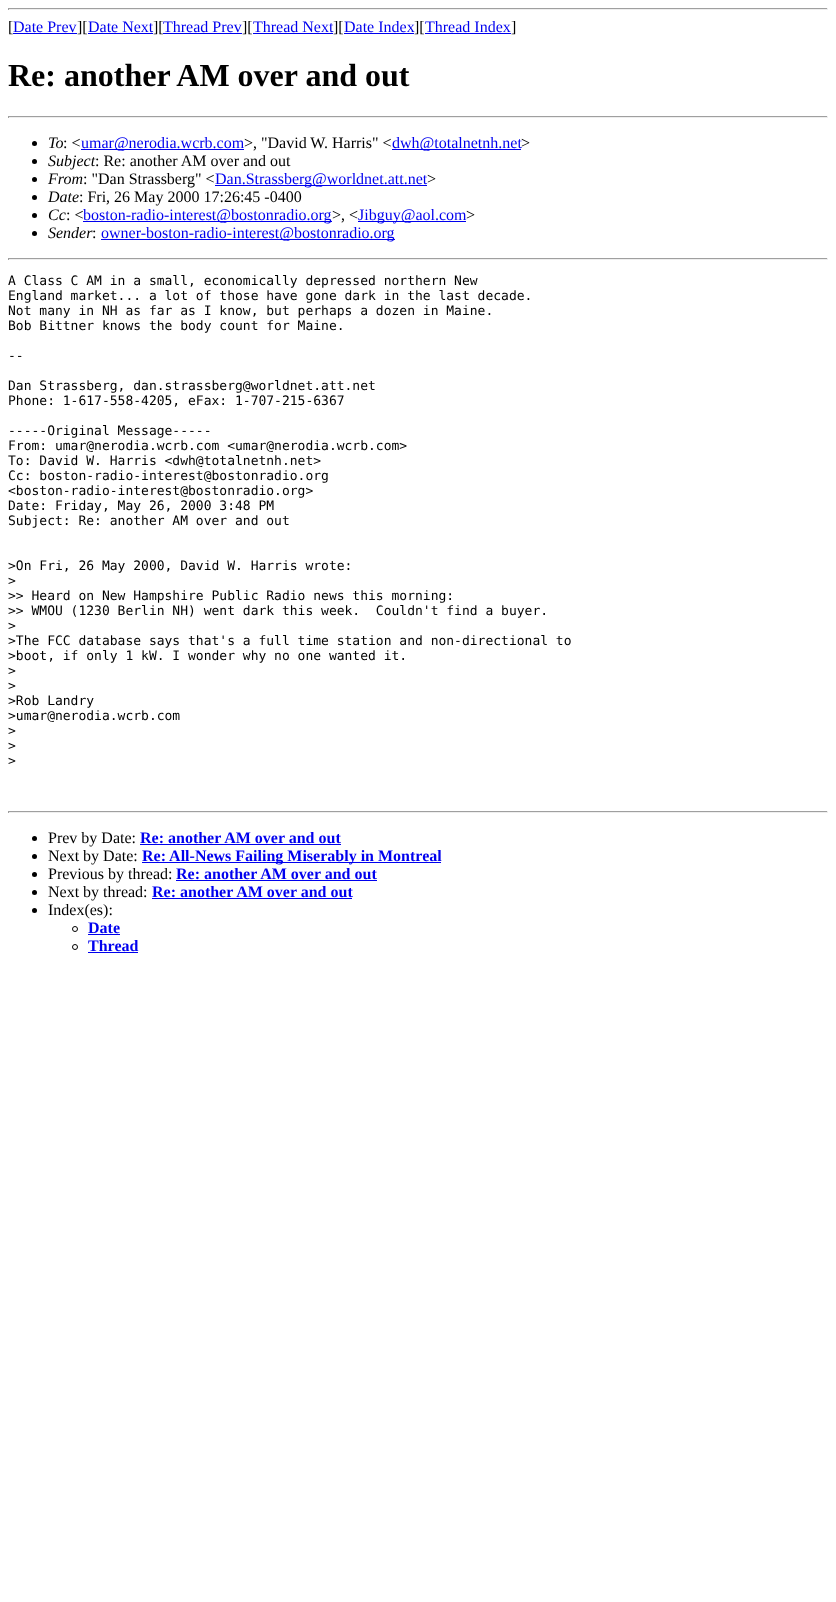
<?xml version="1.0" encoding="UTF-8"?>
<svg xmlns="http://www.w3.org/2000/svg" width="836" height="1602">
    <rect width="100%" height="100%" fill="#FFFFFF"/>
    <rect x="8" y="8" width="820" height="1" fill="#9F9F9F"/>
    <rect x="827" y="8" width="1" height="2" fill="#EEEEEE"/>
    <rect x="8" y="9" width="820" height="1" fill="#EEEEEE"/>
    <rect x="8" y="8" width="1" height="2" fill="#9F9F9F"/>
    <text x="8" y="32" font-family="Liberation Serif" font-size="16" fill="#000000">[</text>
    <text x="13" y="32" font-family="Liberation Serif" font-size="16" fill="#0000EE">Date Prev</text>
    <rect x="13" y="33" width="64" height="1" fill="#0000EE"/>
    <text x="77" y="32" font-family="Liberation Serif" font-size="16" fill="#000000">][</text>
    <text x="88" y="32" font-family="Liberation Serif" font-size="16" fill="#0000EE">Date Next</text>
    <rect x="88" y="33" width="65" height="1" fill="#0000EE"/>
    <text x="153" y="32" font-family="Liberation Serif" font-size="16" fill="#000000">][</text>
    <text x="163" y="32" font-family="Liberation Serif" font-size="16" fill="#0000EE">Thread Prev</text>
    <rect x="163" y="33" width="79" height="1" fill="#0000EE"/>
    <text x="242" y="32" font-family="Liberation Serif" font-size="16" fill="#000000">][</text>
    <text x="253" y="32" font-family="Liberation Serif" font-size="16" fill="#0000EE">Thread Next</text>
    <rect x="253" y="33" width="80" height="1" fill="#0000EE"/>
    <text x="333" y="32" font-family="Liberation Serif" font-size="16" fill="#000000">][</text>
    <text x="344" y="32" font-family="Liberation Serif" font-size="16" fill="#0000EE">Date Index</text>
    <rect x="344" y="33" width="70" height="1" fill="#0000EE"/>
    <text x="414" y="32" font-family="Liberation Serif" font-size="16" fill="#000000">][</text>
    <text x="425" y="32" font-family="Liberation Serif" font-size="16" fill="#0000EE">Thread Index</text>
    <rect x="425" y="33" width="86" height="1" fill="#0000EE"/>
    <text x="511" y="32" font-family="Liberation Serif" font-size="16" fill="#000000">]</text>
    <text x="8" y="86" font-family="Liberation Serif" font-size="32" font-weight="700" fill="#000000">Re: another AM over and out</text>
    <rect x="8" y="116" width="820" height="1" fill="#9F9F9F"/>
    <rect x="827" y="116" width="1" height="2" fill="#EEEEEE"/>
    <rect x="8" y="117" width="820" height="1" fill="#EEEEEE"/>
    <rect x="8" y="116" width="1" height="2" fill="#9F9F9F"/>
    <circle cx="34.5" cy="143.5" r="2.5" fill="#000000"/>
    <text x="48" y="148" font-family="Liberation Serif" font-size="16" font-style="italic" fill="#000000">To</text>
    <text x="63" y="148" font-family="Liberation Serif" font-size="16" fill="#000000">: &lt;</text>
    <rect x="81" y="149" width="163" height="1" fill="#0000EE"/>
    <text x="81" y="148" font-family="Liberation Serif" font-size="16" fill="#0000EE">umar@nerodia.wcrb.com</text>
    <text x="244" y="148" font-family="Liberation Serif" font-size="16" fill="#000000">&gt;, "David W. Harris" &lt;</text>
    <rect x="392" y="149" width="129" height="1" fill="#0000EE"/>
    <text x="392" y="148" font-family="Liberation Serif" font-size="16" fill="#0000EE">dwh@totalnetnh.net</text>
    <text x="521" y="148" font-family="Liberation Serif" font-size="16" fill="#000000">&gt;</text>
    <circle cx="34.5" cy="161.5" r="2.5" fill="#000000"/>
    <text x="48" y="166" font-family="Liberation Serif" font-size="16" font-style="italic" fill="#000000">Subject</text>
    <text x="95" y="166" font-family="Liberation Serif" font-size="16" fill="#000000">: Re: another AM over and out</text>
    <circle cx="34.5" cy="179.5" r="2.5" fill="#000000"/>
    <text x="48" y="184" font-family="Liberation Serif" font-size="16" font-style="italic" fill="#000000">From</text>
    <text x="83" y="184" font-family="Liberation Serif" font-size="16" fill="#000000">: "Dan Strassberg" &lt;</text>
    <rect x="215" y="185" width="212" height="1" fill="#0000EE"/>
    <text x="215" y="184" font-family="Liberation Serif" font-size="16" fill="#0000EE">Dan.Strassberg@worldnet.att.net</text>
    <text x="427" y="184" font-family="Liberation Serif" font-size="16" fill="#000000">&gt;</text>
    <circle cx="34.5" cy="197.5" r="2.5" fill="#000000"/>
    <text x="48" y="202" font-family="Liberation Serif" font-size="16" font-style="italic" fill="#000000">Date</text>
    <text x="79" y="202" font-family="Liberation Serif" font-size="16" fill="#000000">: Fri, 26 May 2000 17:26:45 -0400</text>
    <circle cx="34.5" cy="215.5" r="2.5" fill="#000000"/>
    <text x="48" y="220" font-family="Liberation Serif" font-size="16" font-style="italic" fill="#000000">Cc</text>
    <text x="66" y="220" font-family="Liberation Serif" font-size="16" fill="#000000">: &lt;</text>
    <rect x="83" y="221" width="249" height="1" fill="#0000EE"/>
    <text x="83" y="220" font-family="Liberation Serif" font-size="16" fill="#0000EE">boston-radio-interest@bostonradio.org</text>
    <text x="332" y="220" font-family="Liberation Serif" font-size="16" fill="#000000">&gt;, &lt;</text>
    <rect x="358" y="221" width="108" height="1" fill="#0000EE"/>
    <text x="358" y="220" font-family="Liberation Serif" font-size="16" fill="#0000EE">Jibguy@aol.com</text>
    <text x="466" y="220" font-family="Liberation Serif" font-size="16" fill="#000000">&gt;</text>
    <circle cx="34.5" cy="233.5" r="2.5" fill="#000000"/>
    <text x="48" y="238" font-family="Liberation Serif" font-size="16" font-style="italic" fill="#000000">Sender</text>
    <text x="92" y="238" font-family="Liberation Serif" font-size="16" fill="#000000">:</text>
    <rect x="101" y="239" width="294" height="1" fill="#0000EE"/>
    <text x="101" y="238" font-family="Liberation Serif" font-size="16" fill="#0000EE">owner-boston-radio-interest@bostonradio.org</text>
    <rect x="8" y="258" width="820" height="1" fill="#9F9F9F"/>
    <rect x="827" y="258" width="1" height="2" fill="#EEEEEE"/>
    <rect x="8" y="259" width="820" height="1" fill="#EEEEEE"/>
    <rect x="8" y="258" width="1" height="2" fill="#9F9F9F"/>
    <text font-family="DejaVu Sans Mono" font-size="13" fill="#000000">
        <tspan x="8" y="285">A Class C AM in a small, economically depressed northern New</tspan>
        <tspan x="8" y="300">England market... a lot of those have gone dark in the last decade.</tspan>
        <tspan x="8" y="315">Not many in NH as far as I know, but perhaps a dozen in Maine.</tspan>
        <tspan x="8" y="330">Bob Bittner knows the body count for Maine.</tspan>
    </text>
    <text x="8" y="360" font-family="DejaVu Sans Mono" font-size="13" fill="#000000">--</text>
    <text font-family="DejaVu Sans Mono" font-size="13" fill="#000000">
        <tspan x="8" y="390">Dan Strassberg, dan.strassberg@worldnet.att.net</tspan>
        <tspan x="8" y="405">Phone: 1-617-558-4205, eFax: 1-707-215-6367</tspan>
    </text>
    <text font-family="DejaVu Sans Mono" font-size="13" fill="#000000">
        <tspan x="8" y="435">-----Original Message-----</tspan>
        <tspan x="8" y="450">From: umar@nerodia.wcrb.com &lt;umar@nerodia.wcrb.com&gt;</tspan>
        <tspan x="8" y="465">To: David W. Harris &lt;dwh@totalnetnh.net&gt;</tspan>
        <tspan x="8" y="480">Cc: boston-radio-interest@bostonradio.org</tspan>
        <tspan x="8" y="495">&lt;boston-radio-interest@bostonradio.org&gt;</tspan>
        <tspan x="8" y="510">Date: Friday, May 26, 2000 3:48 PM</tspan>
        <tspan x="8" y="525">Subject: Re: another AM over and out</tspan>
    </text>
    <text font-family="DejaVu Sans Mono" font-size="13" fill="#000000" xml:space="preserve"><tspan x="8" y="570">&gt;On Fri, 26 May 2000, David W. Harris wrote:</tspan><tspan x="8" y="585">&gt;</tspan><tspan x="8" y="600">&gt;&gt; Heard on New Hampshire Public Radio news this morning:</tspan><tspan x="8" y="615">&gt;&gt; WMOU (1230 Berlin NH) went dark this week.  Couldn't find a buyer.</tspan><tspan x="8" y="630">&gt;</tspan><tspan x="8" y="645">&gt;The FCC database says that's a full time station and non-directional to</tspan><tspan x="8" y="660">&gt;boot, if only 1 kW. I wonder why no one wanted it.</tspan><tspan x="8" y="675">&gt;</tspan><tspan x="8" y="690">&gt;</tspan><tspan x="8" y="705">&gt;Rob Landry</tspan><tspan x="8" y="720">&gt;umar@nerodia.wcrb.com</tspan><tspan x="8" y="735">&gt;</tspan><tspan x="8" y="750">&gt;</tspan><tspan x="8" y="765">&gt;</tspan></text>
    <rect x="8" y="811" width="820" height="1" fill="#9F9F9F"/>
    <rect x="827" y="811" width="1" height="2" fill="#EEEEEE"/>
    <rect x="8" y="812" width="820" height="1" fill="#EEEEEE"/>
    <rect x="8" y="811" width="1" height="2" fill="#9F9F9F"/>
    <circle cx="34.5" cy="838.5" r="2.5" fill="#000000"/>
    <text x="48" y="843" font-family="Liberation Serif" font-size="16" fill="#000000">Prev by Date:</text>
    <text x="140" y="843" font-family="Liberation Serif" font-size="16" font-weight="700" fill="#0000EE">Re: another AM over and out</text>
    <rect x="140" y="844" width="201" height="1" fill="#0000EE"/>
    <circle cx="34.5" cy="856.5" r="2.5" fill="#000000"/>
    <text x="48" y="861" font-family="Liberation Serif" font-size="16" fill="#000000">Next by Date:</text>
    <rect x="142" y="862" width="299" height="1" fill="#0000EE"/>
    <text x="142" y="861" font-family="Liberation Serif" font-size="16" font-weight="700" fill="#0000EE">Re: All-News Failing Miserably in Montreal</text>
    <circle cx="34.5" cy="874.5" r="2.5" fill="#000000"/>
    <text x="48" y="879" font-family="Liberation Serif" font-size="16" fill="#000000">Previous by thread:</text>
    <text x="176" y="879" font-family="Liberation Serif" font-size="16" font-weight="700" fill="#0000EE">Re: another AM over and out</text>
    <rect x="176" y="880" width="201" height="1" fill="#0000EE"/>
    <circle cx="34.5" cy="892.5" r="2.5" fill="#000000"/>
    <text x="48" y="897" font-family="Liberation Serif" font-size="16" fill="#000000">Next by thread:</text>
    <text x="152" y="897" font-family="Liberation Serif" font-size="16" font-weight="700" fill="#0000EE">Re: another AM over and out</text>
    <rect x="152" y="898" width="200" height="1" fill="#0000EE"/>
    <circle cx="34.5" cy="910.5" r="2.5" fill="#000000"/>
    <text x="48" y="915" font-family="Liberation Serif" font-size="16" fill="#000000">Index(es):</text>
    <circle cx="75" cy="929" r="2.5" fill="none" stroke="#000000"/>
    <text x="88" y="933" font-family="Liberation Serif" font-size="16" font-weight="700" fill="#0000EE">Date</text>
    <rect x="88" y="934" width="32" height="1" fill="#0000EE"/>
    <circle cx="75" cy="947" r="2.5" fill="none" stroke="#000000"/>
    <text x="88" y="951" font-family="Liberation Serif" font-size="16" font-weight="700" fill="#0000EE">Thread</text>
    <rect x="88" y="952" width="50" height="1" fill="#0000EE"/>
</svg>
